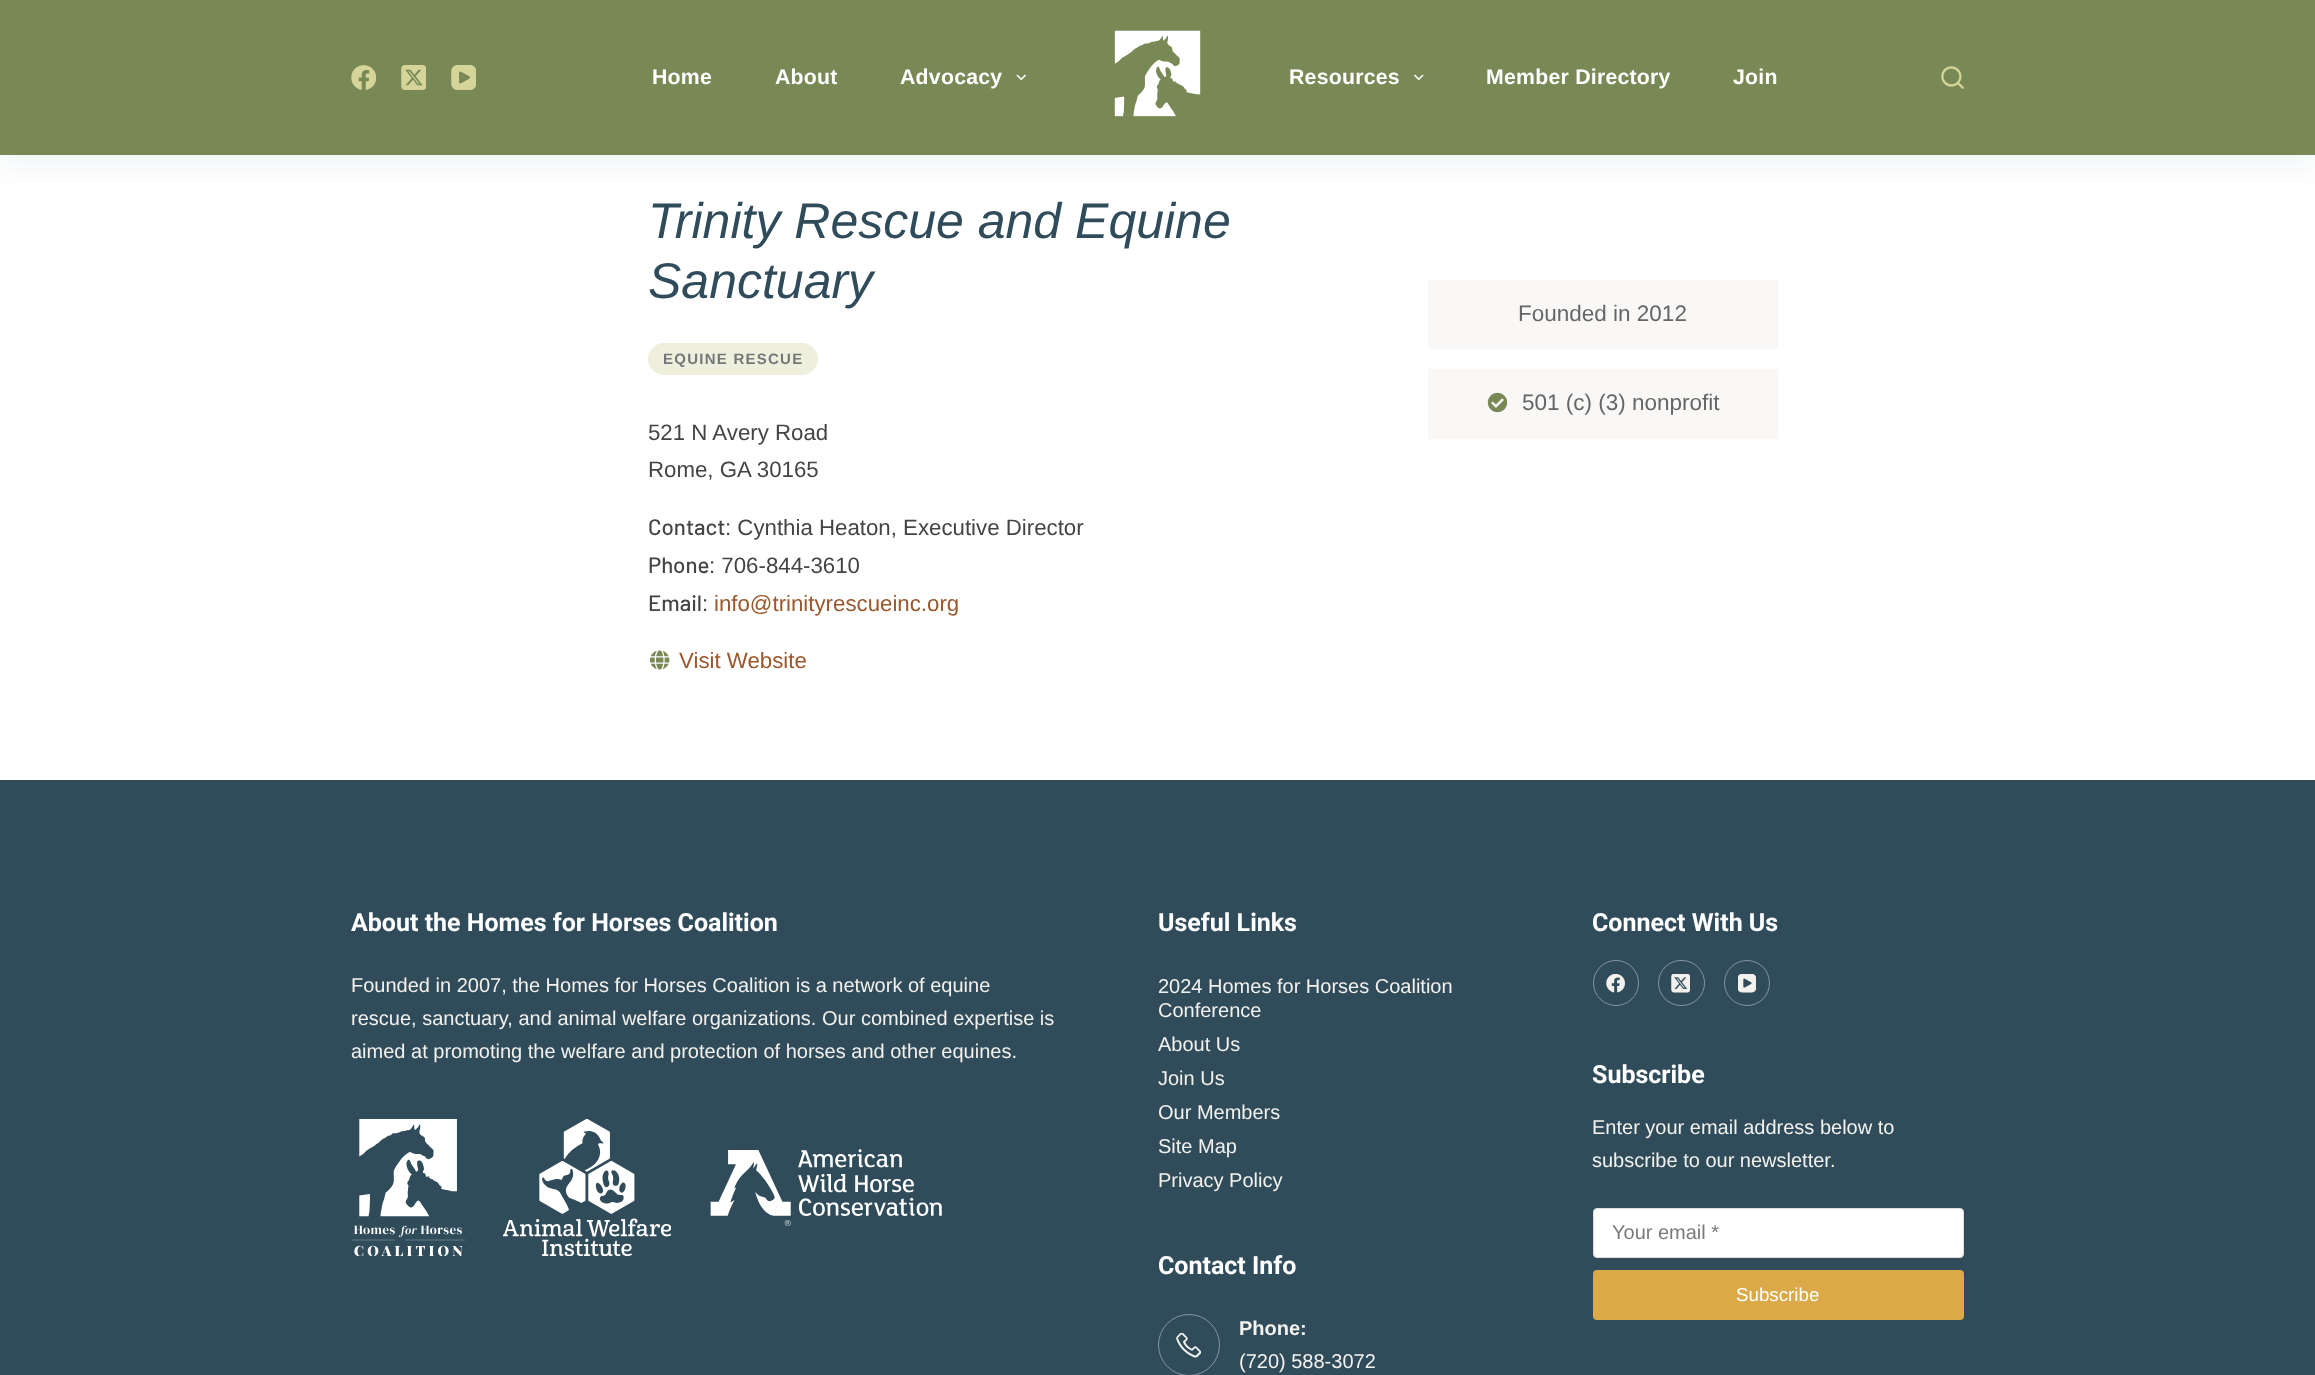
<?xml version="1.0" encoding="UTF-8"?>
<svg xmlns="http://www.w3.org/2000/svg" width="2315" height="1375">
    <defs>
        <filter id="blur1" x="-50%" y="-200%" width="200%" height="500%"><feGaussianBlur stdDeviation="12.5"/></filter>
    </defs>
    <rect width="100%" height="100%" fill="#FFFFFF"/>
    <rect x="0" y="13" width="2315" height="155" fill="#2B3D4F" fill-opacity="0.05" filter="url(#blur1)"/>
    <rect x="0" y="0" width="2315" height="155" fill="#798956"/>
    <image x="351" y="65" width="25" height="25" href="img_01.png"/>
    <image x="401" y="65" width="25" height="25" href="img_02.png"/>
    <image x="451" y="65" width="25" height="25" href="img_03.png"/>
    <text x="652" y="84" font-family="Liberation Sans" font-size="21.25" font-weight="700" letter-spacing="0.25" fill="#FFFFFF">Home</text>
    <text x="775" y="84" font-family="Liberation Sans" font-size="21.25" font-weight="700" letter-spacing="0.25" fill="#FFFFFF">About</text>
    <text x="900" y="84" font-family="Liberation Sans" font-size="21.25" font-weight="700" letter-spacing="0.25" fill="#FFFFFF">Advocacy</text>
    <image x="1016" y="74" width="10" height="7" href="img_04.png"/>
    <image x="1114" y="30" width="87" height="87" href="img_05.png"/>
    <text x="1289" y="84" font-family="Liberation Sans" font-size="21.25" font-weight="700" letter-spacing="0.25" fill="#FFFFFF">Resources</text>
    <image x="1414" y="74" width="10" height="7" href="img_06.png"/>
    <text x="1486" y="84" font-family="Liberation Sans" font-size="21.25" font-weight="700" letter-spacing="0.25" fill="#FFFFFF">Member Directory</text>
    <text x="1733" y="84" font-family="Liberation Sans" font-size="21.25" font-weight="700" letter-spacing="0.25" fill="#FFFFFF">Join</text>
    <image x="1941" y="66" width="23" height="23" href="img_07.png"/>
    <text font-family="Liberation Sans" font-size="50" font-style="italic" fill="#304C5B">
        <tspan x="648" y="238">Trinity Rescue and Equine</tspan>
        <tspan x="648" y="298">Sanctuary</tspan>
    </text>
    <rect x="648" y="343" width="170" height="32" rx="16" fill="#EEEFDC"/>
    <text x="663" y="364" font-family="Liberation Sans" font-size="15" font-weight="700" letter-spacing="1.25" fill="#737878">EQUINE RESCUE</text>
    <text font-family="Liberation Sans" font-size="22.25" fill="#444444">
        <tspan x="648" y="440">521 N Avery Road</tspan>
        <tspan x="648" y="477">Rome, GA 30165</tspan>
    </text>
    <text x="648" y="535" font-family="Barlow" font-size="22.25" font-weight="500" fill="#444444">Contact</text>
    <text x="725" y="535" font-family="Liberation Sans" font-size="22.25" fill="#444444">: Cynthia Heaton, Executive Director</text>
    <text x="648" y="573" font-family="Barlow" font-size="22.25" font-weight="500" fill="#444444">Phone</text>
    <text x="709" y="573" font-family="Liberation Sans" font-size="22.25" fill="#444444">: 706-844-3610</text>
    <text x="648" y="611" font-family="Barlow" font-size="22.25" font-weight="500" fill="#444444">Email</text>
    <text x="702" y="611" font-family="Liberation Sans" font-size="22.25" fill="#444444">:</text>
    <text x="714" y="611" font-family="Liberation Sans" font-size="22.25" fill="#9A572C">info@trinityrescueinc.org</text>
    <image x="650" y="650" width="20" height="20" href="img_08.png"/>
    <text x="679" y="668" font-family="Liberation Sans" font-size="22.25" fill="#9A572C">Visit Website</text>
    <rect x="1428" y="280" width="350" height="69" fill="#F9F8F7"/>
    <text x="1518" y="321" font-family="Liberation Sans" font-size="22.5" fill="#666666">Founded in 2012</text>
    <rect x="1428" y="369" width="350" height="70" fill="#F9F8F7"/>
    <image x="1487" y="392" width="21" height="21" href="img_09.png"/>
    <text x="1522" y="410" font-family="Liberation Sans" font-size="22.5" fill="#666666">501 (c) (3) nonprofit</text>
    <rect x="0" y="780" width="2315" height="595" fill="#304C5B"/>
    <text x="351" y="931" font-family="Roboto" font-size="25" font-weight="700" fill="#FFFFFF">About the Homes for Horses Coalition</text>
    <text font-family="Liberation Sans" font-size="20" fill="#F2F1ED">
        <tspan x="351" y="992">Founded in 2007, the Homes for Horses Coalition is a network of equine</tspan>
        <tspan x="351" y="1025">rescue, sanctuary, and animal welfare organizations. Our combined expertise is</tspan>
        <tspan x="351" y="1058">aimed at promoting the welfare and protection of horses and other equines.</tspan>
    </text>
    <image x="351" y="1119" width="114" height="137" href="img_10.png"/>
    <image x="503" y="1119" width="168" height="137" href="img_11.png"/>
    <image x="710" y="1149" width="232" height="77" href="img_12.png"/>
    <text x="1158" y="931" font-family="Roboto" font-size="25" font-weight="700" fill="#FFFFFF">Useful Links</text>
    <text font-family="Liberation Sans" font-size="20" fill="#F2F1ED">
        <tspan x="1158" y="993">2024 Homes for Horses Coalition</tspan>
        <tspan x="1158" y="1017">Conference</tspan>
        <tspan x="1158" y="1051">About Us</tspan>
        <tspan x="1158" y="1085">Join Us</tspan>
        <tspan x="1158" y="1119">Our Members</tspan>
        <tspan x="1158" y="1153">Site Map</tspan>
        <tspan x="1158" y="1187">Privacy Policy</tspan>
    </text>
    <text x="1158" y="1274" font-family="Roboto" font-size="25" font-weight="700" fill="#FFFFFF">Contact Info</text>
    <circle cx="1189" cy="1345" r="30.5" fill="none" stroke="#8595A0"/>
    <image x="1176" y="1333" width="25" height="25" href="img_13.png"/>
    <text x="1239" y="1335" font-family="Liberation Sans" font-size="20" font-weight="700" fill="#F2F1ED">Phone:</text>
    <text x="1239" y="1368" font-family="Liberation Sans" font-size="20" fill="#F2F1ED">(720) 588-3072</text>
    <text x="1592" y="931" font-family="Roboto" font-size="25" font-weight="700" fill="#FFFFFF">Connect With Us</text>
    <circle cx="1616" cy="983" r="22.5" fill="none" stroke="#8595A0"/>
    <image x="1606" y="974" width="19" height="19" href="img_14.png"/>
    <rect x="1658.5" y="960.5" width="46" height="45" rx="22.5" fill="none" stroke="#8595A0"/>
    <image x="1671" y="974" width="19" height="19" href="img_15.png"/>
    <circle cx="1747" cy="983" r="22.5" fill="none" stroke="#8595A0"/>
    <image x="1738" y="974" width="18" height="19" href="img_16.png"/>
    <text x="1592" y="1083" font-family="Roboto" font-size="25" font-weight="700" fill="#FFFFFF">Subscribe</text>
    <text font-family="Liberation Sans" font-size="20" fill="#F2F1ED">
        <tspan x="1592" y="1134">Enter your email address below to</tspan>
        <tspan x="1592" y="1167">subscribe to our newsletter.</tspan>
    </text>
    <rect x="1593.5" y="1208.5" width="370" height="49" rx="3.5" fill="#FFFFFF" stroke="#DDDDDD"/>
    <text x="1612" y="1239" font-family="Liberation Sans" font-size="20" fill="#7A7A7A">Your email *</text>
    <rect x="1593" y="1270" width="371" height="50" rx="4" fill="#DBA948"/>
    <text x="1736" y="1301" font-family="Liberation Sans" font-size="18.75" fill="#FFFFFF">Subscribe</text>
</svg>
